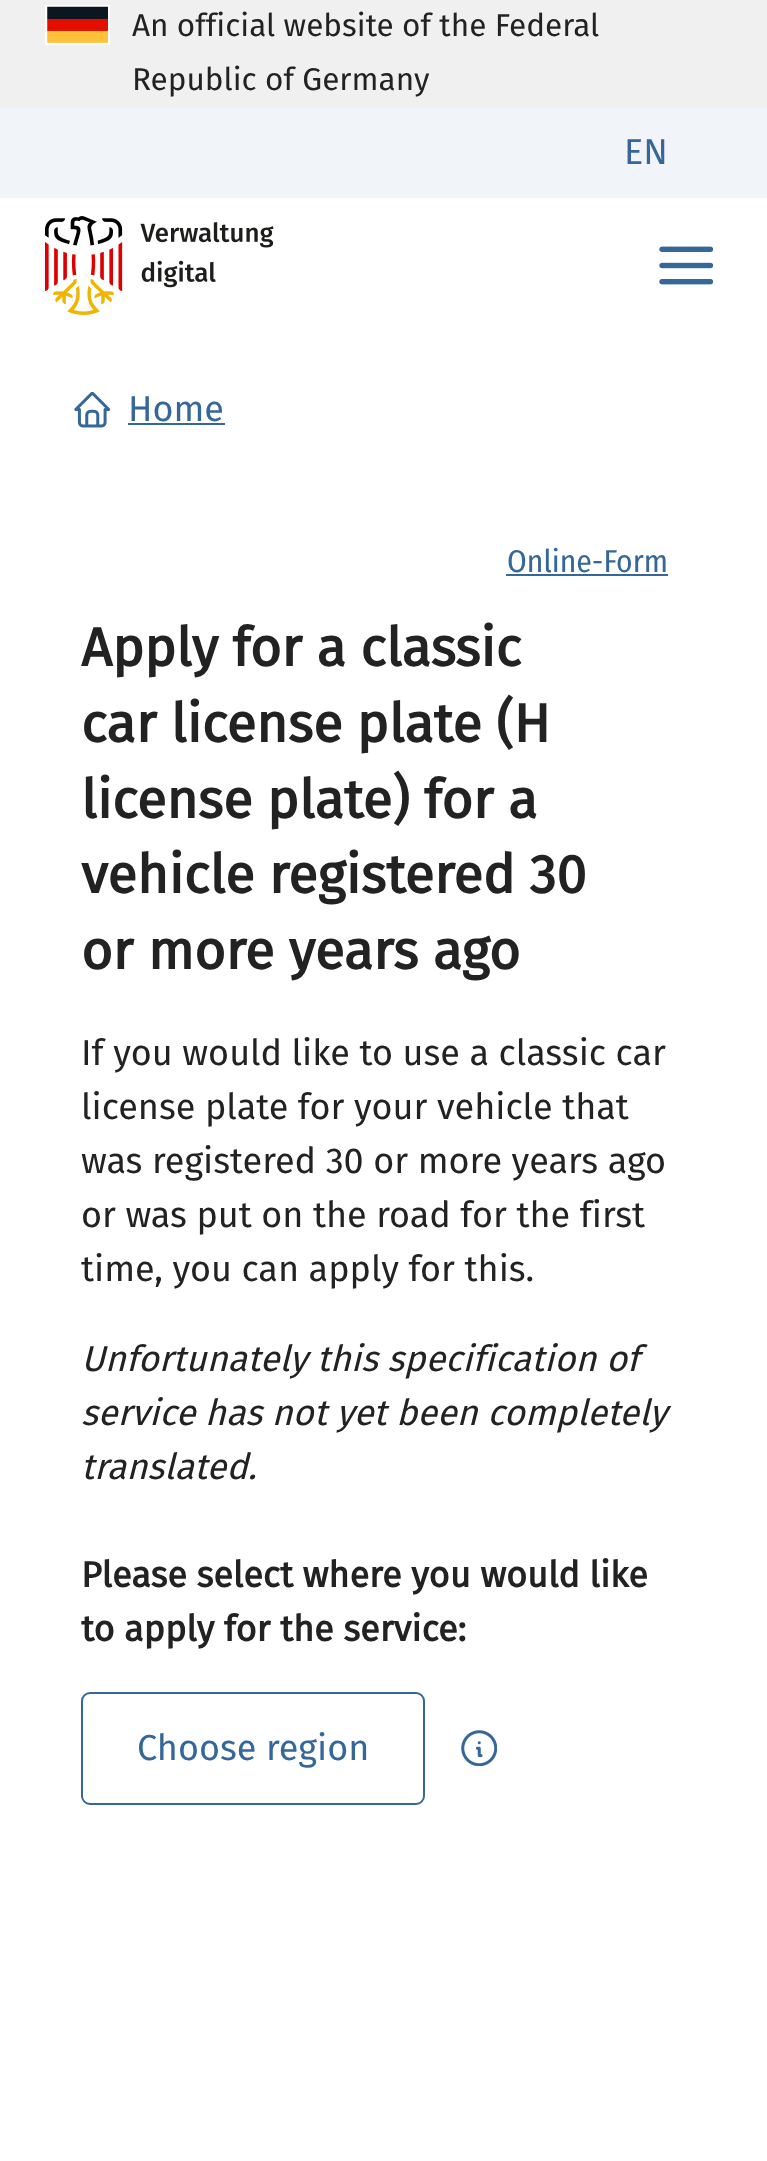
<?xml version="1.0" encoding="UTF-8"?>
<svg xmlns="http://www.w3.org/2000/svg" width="767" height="2161">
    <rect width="100%" height="100%" fill="#FFFFFF"/>
    <rect x="0" y="0" width="767" height="108" fill="#F0F0F0"/>
    <rect x="46" y="6" width="63" height="38" fill="none" stroke="#FFFFFF" stroke-width="2"/>
    <image x="47" y="6" width="61" height="37" href="img_01.png"/>
    <text font-family="Fira Sans" font-size="31.5" fill="#222222">
        <tspan x="132" y="36">An official website of the Federal</tspan>
        <tspan x="132" y="90">Republic of Germany</tspan>
    </text>
    <rect x="0" y="108" width="767" height="90" fill="#F1F4F8"/>
    <text x="624" y="164" font-family="Fira Sans" font-size="36" fill="#356799">EN</text>
    <image x="45" y="216" width="229" height="99" href="img_02.png"/>
    <image x="659" y="246" width="54" height="39" href="img_03.png"/>
    <image x="74" y="392" width="36" height="36" href="img_04.png"/>
    <text x="128" y="421" font-family="Fira Sans" font-size="36" fill="#356799">Home</text>
    <rect x="128" y="423" width="97" height="2" fill="#356799"/>
    <text x="507" y="572" font-family="Fira Sans Condensed" font-size="31.5" fill="#356799">Online-Form</text>
    <rect x="506" y="574" width="162" height="2" fill="#356799"/>
    <text font-family="Fira Sans" font-size="54" font-weight="700" fill="#222222">
        <tspan x="81" y="666">Apply for a classic</tspan>
        <tspan x="81" y="742">car license plate (H</tspan>
        <tspan x="81" y="818">license plate) for a</tspan>
        <tspan x="81" y="893">vehicle registered 30</tspan>
        <tspan x="81" y="969">or more years ago</tspan>
    </text>
    <text font-family="Fira Sans" font-size="36" fill="#222222">
        <tspan x="81" y="1065">If you would like to use a classic car</tspan>
        <tspan x="81" y="1119">license plate for your vehicle that</tspan>
        <tspan x="81" y="1173">was registered 30 or more years ago</tspan>
        <tspan x="81" y="1227">or was put on the road for the first</tspan>
        <tspan x="81" y="1281">time, you can apply for this.</tspan>
    </text>
    <text font-family="Fira Sans" font-size="36" font-style="italic" fill="#222222">
        <tspan x="81" y="1371">Unfortunately this specification of</tspan>
        <tspan x="81" y="1425">service has not yet been completely</tspan>
        <tspan x="81" y="1479">translated.</tspan>
    </text>
    <text font-family="Fira Sans" font-size="36" font-weight="700" fill="#222222">
        <tspan x="81" y="1587">Please select where you would like</tspan>
        <tspan x="81" y="1641">to apply for the service:</tspan>
    </text>
    <rect x="82" y="1693" width="342" height="111" rx="8" fill="none" stroke="#356799" stroke-width="2"/>
    <text x="137" y="1760" font-family="Fira Sans" font-size="36" fill="#356799">Choose region</text>
    <image x="461" y="1730" width="36" height="36" href="img_05.png"/>
</svg>
